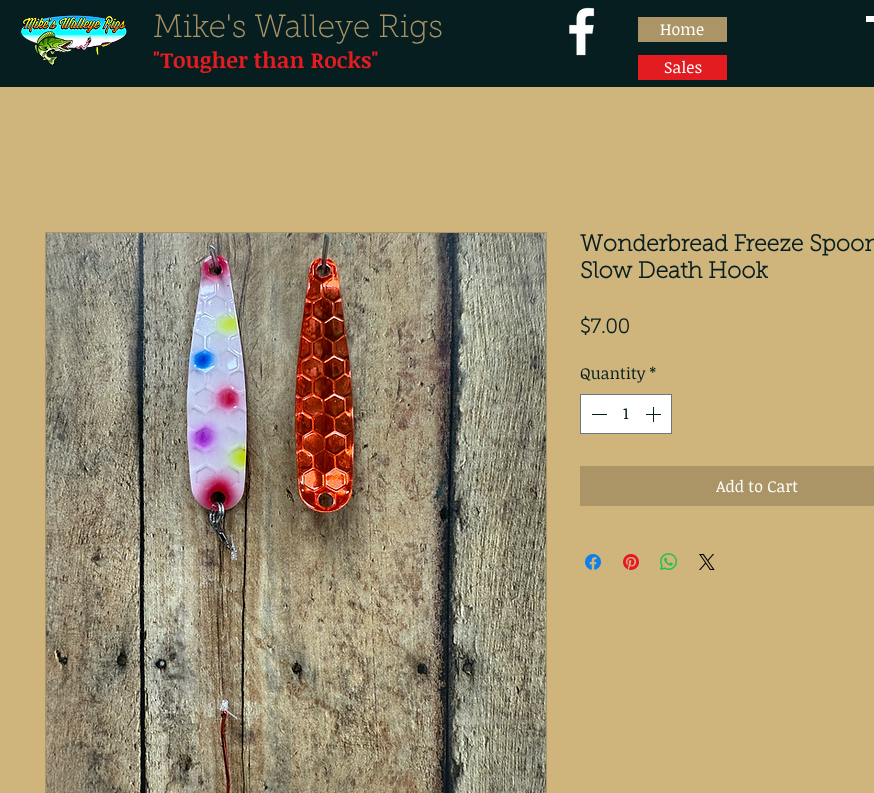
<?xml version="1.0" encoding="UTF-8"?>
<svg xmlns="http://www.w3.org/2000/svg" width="874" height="793">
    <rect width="100%" height="100%" fill="#061E20"/>
    <image x="21" y="15" width="106" height="51" href="img_01.png"/>
    <text x="153" y="37" font-family="'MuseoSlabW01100'" font-size="32" font-weight="100" fill="#AB9567">Mike's Walleye Rigs</text>
    <image x="569" y="7" width="26" height="49" href="img_02.png"/>
    <path d="M 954 34 L 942 66 H 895 L 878 22 H 866 V 16 H 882 L 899 60 H 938 L 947 34" fill="#FFFFFF"/>
    <rect x="638" y="17" width="89" height="25" fill="#AB9567"/>
    <text x="660" y="35" font-family="Noticia Text" font-size="16" fill="#FFFFFF">Home</text>
    <text x="153" y="68" font-family="Noticia Text" font-size="22" font-weight="700" fill="#E21C21">"Tougher than Rocks"</text>
    <rect x="638" y="55" width="89" height="25" fill="#E21C21"/>
    <text x="664" y="73" font-family="Noticia Text" font-size="16" fill="#FFFFFF">Sales</text>
    <rect x="0" y="87" width="874" height="706" fill="#CFB57C"/>
    <rect x="45.5" y="232.5" width="501" height="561" fill="none" stroke="#A7976A"/>
    <image x="46" y="233" width="500" height="560" href="img_03.png"/>
    <text font-family="'MuseoSlabW01100'" font-size="23" font-weight="700" fill="#061E20">
        <tspan x="580" y="251">Wonderbread Freeze Spoon</tspan>
        <tspan x="580" y="278">Slow Death Hook</tspan>
    </text>
    <text x="580" y="333" font-family="'MuseoSlabW01100'" font-size="20" font-weight="700" fill="#061E20">$7.00</text>
    <text x="580" y="379" font-family="Noticia Text" font-size="16" fill="#061E20">Quantity *</text>
    <rect x="580.5" y="394.5" width="91" height="39" fill="#FFFFFF" stroke="#6A7879"/>
    <rect x="592" y="414" width="15" height="1" fill="#061E20"/>
    <text x="623" y="419" font-family="Noticia Text" font-size="16" fill="#061E20">1</text>
    <image x="646" y="407" width="15" height="15" href="img_04.png"/>
    <rect x="580" y="466" width="294" height="40" fill="#AB9567"/>
    <text x="716" y="492" font-family="Noticia Text" font-size="16" fill="#FFFFFF">Add to Cart</text>
    <image x="585" y="554" width="16" height="16" href="img_05.png"/>
    <image x="623" y="554" width="16" height="16" href="img_06.png"/>
    <image x="660" y="553" width="17" height="17" href="img_07.png"/>
    <image x="699" y="554" width="16" height="16" href="img_08.png"/>
</svg>
